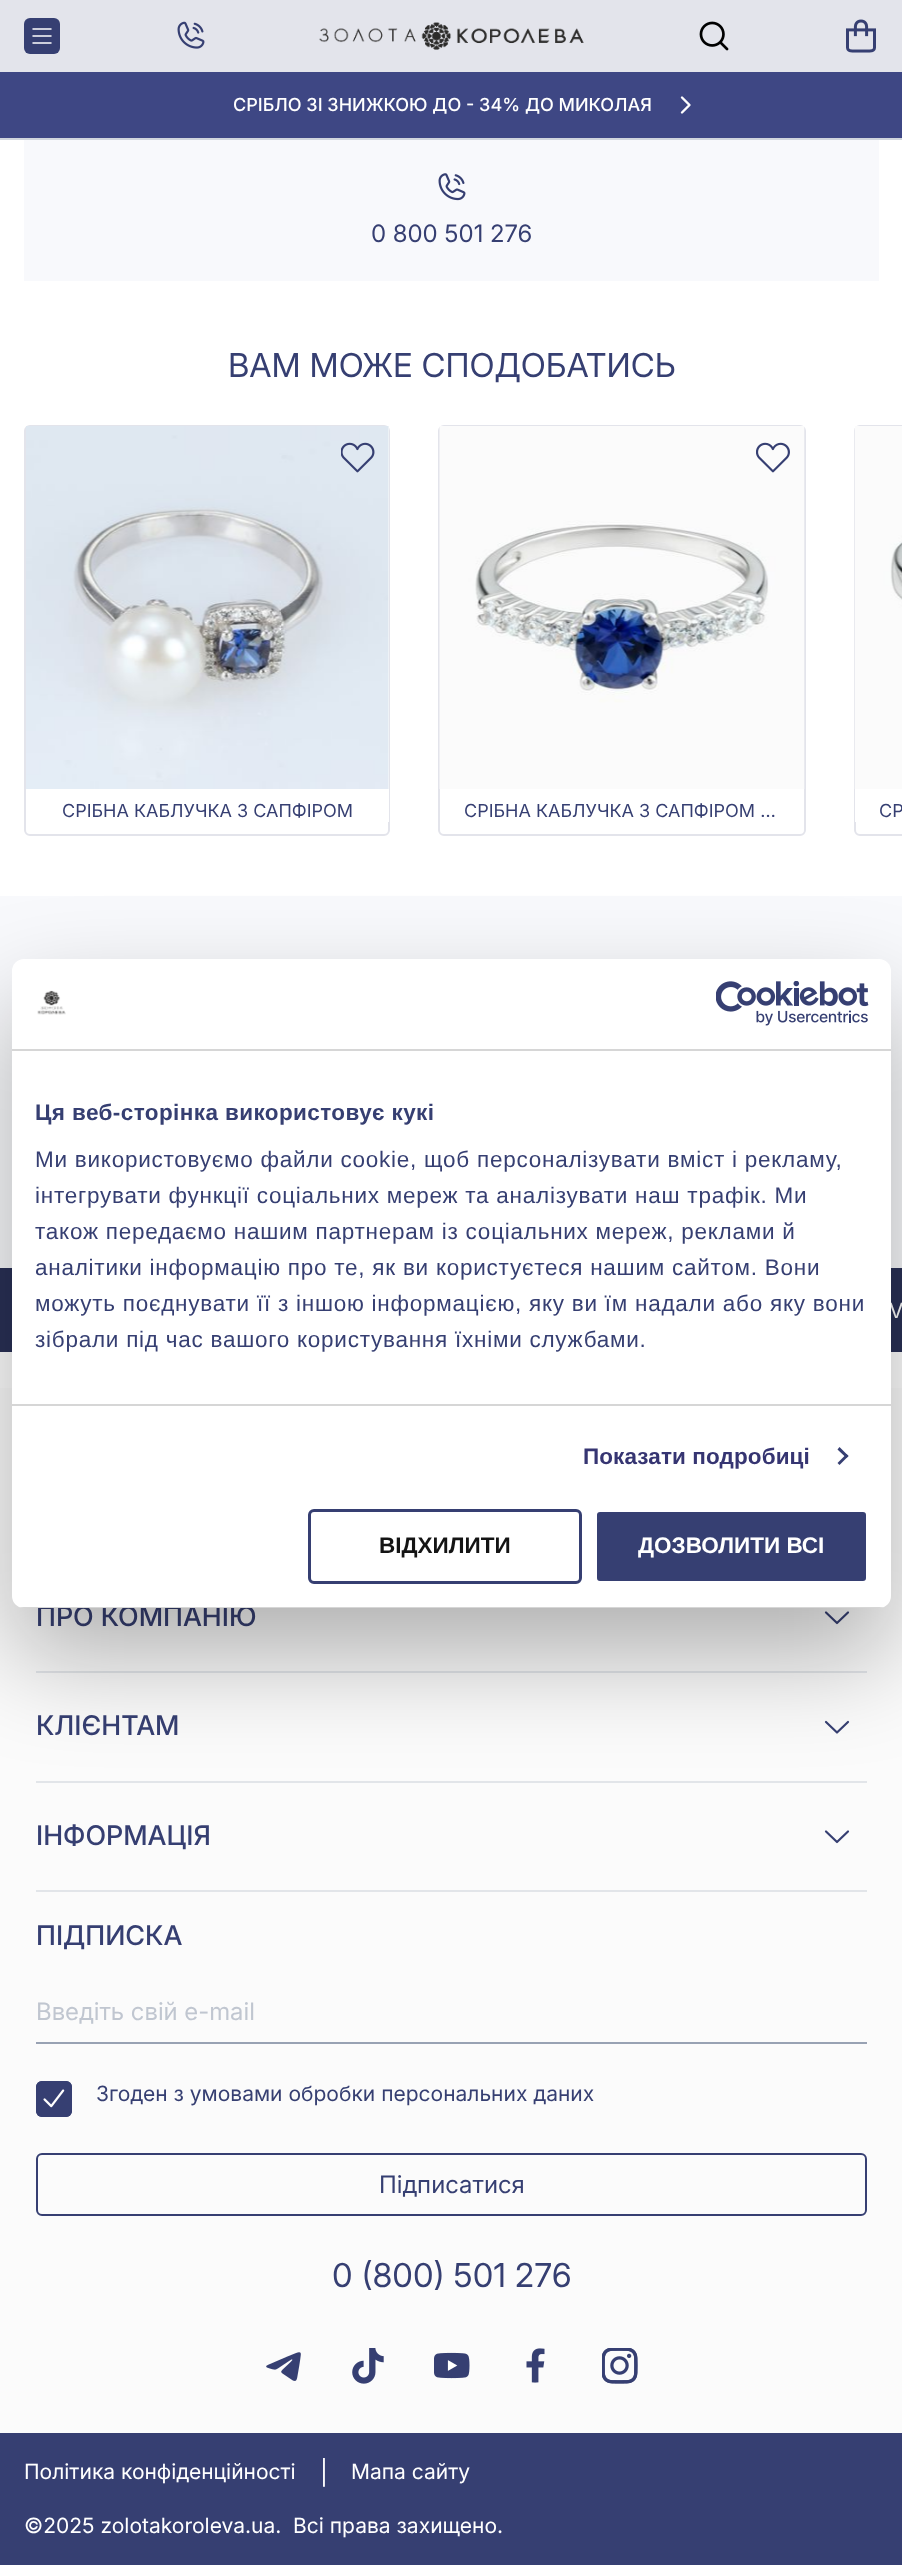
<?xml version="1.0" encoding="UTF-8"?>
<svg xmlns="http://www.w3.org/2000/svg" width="902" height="2565">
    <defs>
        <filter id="blur1" x="-50%" y="-200%" width="200%" height="500%"><feGaussianBlur stdDeviation="51"/></filter>
        <clipPath id="clip1"><rect x="12" y="959" width="879" height="649" rx="12"/></clipPath>
    </defs>
    <rect width="100%" height="100%" fill="#FFFFFF"/>
    <rect x="0" y="138" width="902" height="2" fill="#D0D5DD"/>
    <rect x="0" y="0" width="902" height="72" fill="#E3E4EB"/>
    <rect x="24" y="18" width="36" height="36" rx="6" fill="#363F72"/>
    <path d="M 33 29 H 51 M 33 36 H 51 M 33 43 H 51" fill="none" stroke="#FFFFFF" stroke-width="1.5" stroke-linecap="round"/>
    <image x="177" y="21" width="28" height="28" href="img_01.png"/>
    <image x="319" y="22" width="265" height="28" href="img_02.png"/>
    <image x="699" y="21" width="30" height="30" href="img_03.png"/>
    <image x="846" y="19" width="30" height="34" href="img_04.png"/>
    <rect x="0" y="72" width="902" height="66" fill="#3E4784"/>
    <text x="233" y="111" font-family="'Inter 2'" font-size="18" font-weight="500" fill="#FFFFFF">СРІБЛО ЗІ ЗНИЖКОЮ ДО - 34% ДО МИКОЛАЯ</text>
    <path d="M 682 97.5 L 689.5 105 L 682 112.5" fill="none" stroke="#FFFFFF" stroke-width="2.4" stroke-linecap="round" stroke-linejoin="round"/>
    <rect x="24" y="140" width="855" height="141" fill="#F8F9FC"/>
    <image x="438" y="173" width="28" height="28" href="img_05.png"/>
    <text x="371" y="242" font-family="Inter" font-size="24" fill="#363F72">0 800 501 276</text>
    <text x="228" y="377" font-family="'Inter 2'" font-size="33" fill="#363F72">ВАМ МОЖЕ СПОДОБАТИСЬ</text>
    <rect x="25" y="426" width="364" height="409" rx="5" fill="none" stroke="#E3E4EB" stroke-width="2"/>
    <rect x="388" y="426" width="1" height="363" fill="#FBFBFB"/>
    <image x="26" y="426" width="363" height="363" href="img_06.png"/>
    <image x="341" y="442" width="34" height="31" href="img_07.png"/>
    <rect x="388" y="789" width="1" height="33" fill="#FFFFFF"/>
    <text x="62" y="817" font-family="'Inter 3'" font-size="18" fill="#363F72">СРIБНА КАБЛУЧКА З САПФІРОМ</text>
    <rect x="439" y="426" width="366" height="409" rx="5" fill="none" stroke="#E3E4EB" stroke-width="2"/>
    <rect x="440" y="426" width="364" height="363" fill="#FBFBFB"/>
    <image x="439" y="427" width="366" height="362" href="img_08.png"/>
    <image x="756" y="442" width="34" height="31" href="img_09.png"/>
    <text x="464" y="817" font-family="'Inter 3'" font-size="18" fill="#363F72">СРIБНА КАБЛУЧКА З САПФІРОМ …</text>
    <rect x="855" y="426" width="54" height="409" rx="5" fill="none" stroke="#E3E4EB" stroke-width="2"/>
    <rect x="855" y="426" width="47" height="363" fill="#FBFBFB"/>
    <image x="854" y="429" width="48" height="360" href="img_10.png"/>
    <rect x="855" y="789" width="1" height="33" fill="#FFFFFF"/>
    <text x="879" y="817" font-family="'Inter 3'" font-size="18" fill="#363F72">СР</text>
    <rect x="0" y="896" width="902" height="372" fill="#F8F9FC"/>
    <rect x="0" y="1268" width="902" height="84" fill="#293056"/>
    <text x="889" y="1318" font-family="'Inter 3'" font-size="21" fill="#FFFFFF">V</text>
    <rect x="0" y="1388" width="902" height="1045" fill="#FBFBFB"/>
    <text x="36" y="1626" font-family="Inter" font-size="27" font-weight="500" fill="#363F72">ПРО КОМПАНІЮ</text>
    <path d="M 848 1612.5 L 837 1623 L 826 1612.5" fill="none" stroke="#363F72" stroke-width="2.2" stroke-linecap="round" stroke-linejoin="round"/>
    <rect x="36" y="1671" width="831" height="2" fill="#E2E5E9"/>
    <text x="36" y="1735" font-family="Inter" font-size="27" font-weight="500" fill="#363F72">КЛІЄНТАМ</text>
    <path d="M 848 1722 L 837 1732.5 L 826 1722" fill="none" stroke="#363F72" stroke-width="2.2" stroke-linecap="round" stroke-linejoin="round"/>
    <rect x="36" y="1781" width="831" height="2" fill="#E2E5E9"/>
    <text x="36" y="1845" font-family="Inter" font-size="27" font-weight="500" fill="#363F72">ІНФОРМАЦІЯ</text>
    <path d="M 848 1831.5 L 837 1842 L 826 1831.5" fill="none" stroke="#363F72" stroke-width="2.2" stroke-linecap="round" stroke-linejoin="round"/>
    <rect x="36" y="1890" width="831" height="2" fill="#E2E5E9"/>
    <text x="36" y="1945" font-family="Inter" font-size="27" font-weight="500" fill="#363F72">ПІДПИСКА</text>
    <rect x="36" y="2042" width="831" height="2" fill="#98A2B3"/>
    <text x="36" y="2020" font-family="Inter" font-size="24" fill="#C0C6D0">Введіть свій e-mail</text>
    <rect x="36" y="2081" width="36" height="36" rx="6" fill="#363F72"/>
    <image x="43" y="2089" width="22" height="19" href="img_11.png"/>
    <rect x="37" y="2082" width="34" height="34" rx="5" fill="none" stroke="#363F72" stroke-width="2"/>
    <text x="96" y="2101" font-family="'Inter 3'" font-size="21" fill="#363F72">Згоден з умовами обробки персональних даних</text>
    <rect x="37" y="2154" width="829" height="61" rx="5" fill="none" stroke="#363F72" stroke-width="2"/>
    <text x="379" y="2193" font-family="Inter" font-size="24" fill="#363F72">Підписатися</text>
    <text x="332" y="2287" font-family="'Inter 2'" font-size="33" fill="#363F72">0 (800) 501 276</text>
    <image x="266" y="2352" width="35" height="29" href="img_12.png"/>
    <image x="352" y="2348" width="32" height="36" href="img_13.png"/>
    <image x="434" y="2352" width="36" height="27" href="img_14.png"/>
    <image x="526" y="2348" width="19" height="35" href="img_15.png"/>
    <image x="602" y="2348" width="36" height="36" href="img_16.png"/>
    <rect x="0" y="2433" width="902" height="132" fill="#363F72"/>
    <text x="24" y="2479" font-family="'Inter 3'" font-size="21" fill="#FFFFFF">Політика конфіденційності</text>
    <text x="320" y="2481" font-family="Inter" font-size="24" fill="#FFFFFF">|</text>
    <text x="351" y="2479" font-family="'Inter 3'" font-size="21" fill="#FFFFFF">Мапа сайту</text>
    <text x="24" y="2533" font-family="'Inter 3'" font-size="21" fill="#FFFFFF">©2025 zolotakoroleva.ua.</text>
    <text x="293" y="2533" font-family="'Inter 3'" font-size="21" fill="#FFFFFF">Всі права захищено.</text>
    <rect x="12" y="1007" width="879" height="649" rx="12" fill="#000000" fill-opacity="0.3" filter="url(#blur1)"/>
    <rect x="12" y="959" width="879" height="649" rx="12" fill="#FFFFFF"/>
    <rect x="12" y="1049" width="879" height="2" fill="#D6D6D6"/>
    <image x="37" y="990" width="29" height="25" href="img_17.png"/>
    <image x="716" y="981" width="153" height="45" href="img_18.png"/>
    <rect x="12" y="1404" width="879" height="2" fill="#D6D6D6"/>
    <text x="35" y="1120" font-family="Liberation Sans" font-size="22.5" font-weight="700" letter-spacing="0.4" fill="#363F72">Ця веб-сторінка використовує кукі</text>
    <text font-family="Liberation Sans" font-size="22.5" letter-spacing="0.75" fill="#363F72">
        <tspan x="35" y="1167">Ми використовуємо файли cookie, щоб персоналізувати вміст і рекламу,</tspan>
        <tspan x="35" y="1203">інтегрувати функції соціальних мереж та аналізувати наш трафік. Ми</tspan>
        <tspan x="35" y="1239">також передаємо нашим партнерам із соціальних мереж, реклами й</tspan>
        <tspan x="35" y="1275">аналітики інформацію про те, як ви користуєтеся нашим сайтом. Вони</tspan>
        <tspan x="35" y="1311">можуть поєднувати її з іншою інформацією, яку ви їм надали або яку вони</tspan>
        <tspan x="35" y="1347">зібрали під час вашого користування їхніми службами.</tspan>
    </text>
    <text x="583" y="1464" font-family="Liberation Sans" font-size="22.5" font-weight="700" letter-spacing="0.1" fill="#363572">Показати подробиці</text>
    <path d="M 839.5 1447 L 848.5 1456 L 846.5 1458 L 837.5 1449.5 Z" fill="#363F72"/>
    <path d="M 846.5 1454 L 848.5 1456 L 839.5 1465 L 837.5 1463 Z" fill="#363F72"/>
    <g clip-path="url(#clip1)">
        <rect x="12" y="1607" width="879" height="1" fill="#D6D6D6"/>
    </g>
    <rect x="309.5" y="1510.5" width="271" height="72" rx="4.5" fill="none" stroke="#363F72" stroke-width="3"/>
    <text x="379" y="1553" font-family="Liberation Sans" font-size="22.5" font-weight="700" fill="#141414">ВІДХИЛИТИ</text>
    <rect x="595.5" y="1510.5" width="272" height="72" rx="4.5" fill="#363F72" stroke="#FFFFFF" stroke-width="3"/>
    <text x="638" y="1553" font-family="Liberation Sans" font-size="22.5" font-weight="700" fill="#FFFFFF">ДОЗВОЛИТИ ВСІ</text>
</svg>
